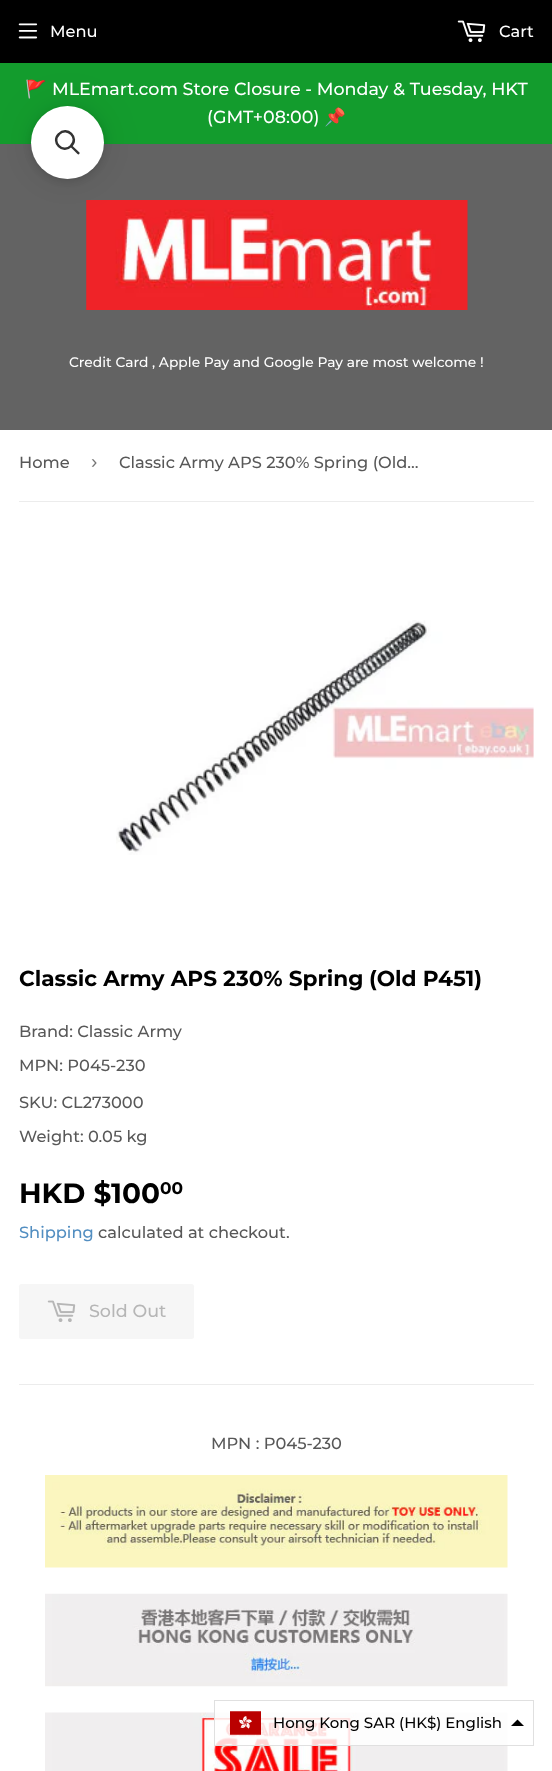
<?xml version="1.0" encoding="UTF-8"?>
<svg xmlns="http://www.w3.org/2000/svg" width="552" height="1771">
    <defs>
        <filter id="blur1" x="-50%" y="-200%" width="200%" height="500%"><feGaussianBlur stdDeviation="5"/></filter>
        <filter id="blur2" x="-50%" y="-200%" width="200%" height="500%"><feGaussianBlur stdDeviation="19"/></filter>
    </defs>
    <rect width="100%" height="100%" fill="#FFFFFF"/>
    <rect x="0" y="0" width="552" height="63" fill="#000000"/>
    <image x="18" y="23" width="20" height="16" href="img_01.png"/>
    <text x="50" y="37" font-family="Montserrat" font-size="16.25" font-weight="500" fill="#FFFFFF">Menu</text>
    <image x="457" y="20" width="29" height="23" href="img_02.png"/>
    <text x="499" y="37" font-family="Montserrat" font-size="16.25" font-weight="500" fill="#FFFFFF">Cart</text>
    <rect x="0" y="144" width="552" height="286" fill="#636363"/>
    <image x="86" y="200" width="382" height="110" href="img_03.png"/>
    <text x="69" y="367" font-family="Montserrat" font-size="13.8" font-weight="500" fill="#FFFFFF">Credit Card , Apple Pay and Google Pay are most welcome !</text>
    <rect x="0" y="63" width="552" height="81" fill="#139C2D"/>
    <rect x="31" y="109" width="73" height="72" rx="36" fill="#000000" fill-opacity="0.15" filter="url(#blur1)"/>
    <rect x="31" y="106" width="73" height="73" rx="36.5" fill="#000000" fill-opacity="0.1" filter="url(#blur2)"/>
    <circle cx="67.5" cy="142.5" r="36.5" fill="#FFFFFF"/>
    <path d="M 59 134 C 67 125.5 79.5 138 71 146 C 63 154.5 50.5 142 59 134 Z" fill="none" stroke="#333333" stroke-width="2.5"/>
    <path d="M 70.5 147 L 72 145.5 L 79.5 152.5 C 80 154 78.5 155 77.5 154 Z" fill="#333333"/>
    <text x="25" y="95" font-family="Noto Color Emoji" font-size="17.5" fill="#FFFFFF">🚩</text>
    <text x="52" y="95" font-family="Montserrat" font-size="17.5" font-weight="500" fill="#FFFFFF">MLEmart.com Store Closure - Monday &amp; Tuesday, HKT</text>
    <text x="207" y="123" font-family="Montserrat" font-size="17.5" font-weight="500" fill="#FFFFFF">(GMT+08:00)</text>
    <text x="324" y="123" font-family="Noto Color Emoji" font-size="17.5" fill="#FFFFFF">📌</text>
    <rect x="19" y="501" width="515" height="1" fill="#ECECEC"/>
    <text x="19" y="468" font-family="Montserrat" font-size="16.25" font-weight="500" fill="#585858">Home</text>
    <text x="91" y="468" font-family="Liberation Sans" font-size="19" fill="#767676">›</text>
    <text x="119" y="468" font-family="Montserrat" font-size="16.25" font-weight="500" fill="#585858">Classic Army APS 230% Spring (Old…</text>
    <image x="116" y="620" width="418" height="235" href="img_04.png"/>
    <text x="19" y="986" font-family="Montserrat" font-size="21.7" font-weight="700" fill="#000000">Classic Army APS 230% Spring</text>
    <text x="369" y="986" font-family="Montserrat" font-size="21.7" font-weight="700" fill="#000000">(Old P451)</text>
    <text x="19" y="1037" font-family="Montserrat" font-size="16.25" font-weight="500" fill="#585858">Brand: Classic Army</text>
    <text x="19" y="1071" font-family="Montserrat" font-size="16.25" font-weight="500" fill="#585858">MPN: P045-230</text>
    <text x="19" y="1108" font-family="Montserrat" font-size="16.25" font-weight="500" fill="#585858">SKU: CL273000</text>
    <text x="19" y="1142" font-family="Montserrat" font-size="16.25" font-weight="500" fill="#585858">Weight: 0.05 kg</text>
    <text x="19" y="1203" font-family="Montserrat" font-size="28" font-weight="700" fill="#000000">HKD $100</text>
    <text x="160" y="1194" font-family="Montserrat" font-size="17" font-weight="700" fill="#000000">00</text>
    <text x="19" y="1238" font-family="Montserrat" font-size="16.25" font-weight="500" fill="#528EC1">Shipping</text>
    <text x="98" y="1238" font-family="Montserrat" font-size="16.25" font-weight="500" fill="#585858">calculated at checkout.</text>
    <rect x="19" y="1284" width="175" height="55" rx="2.5" fill="#F6F6F6"/>
    <image x="47" y="1300" width="29" height="22" href="img_05.png"/>
    <text x="89" y="1317" font-family="Montserrat" font-size="17.5" font-weight="500" fill="#B6B6B6">Sold Out</text>
    <rect x="19" y="1384" width="515" height="1" fill="#ECECEC"/>
    <text x="211" y="1449" font-family="Montserrat" font-size="16.25" font-weight="500" fill="#585858">MPN : P045-230</text>
    <image x="45" y="1475" width="463" height="93" href="img_06.png"/>
    <image x="45" y="1593" width="463" height="94" href="img_07.png"/>
    <image x="45" y="1712" width="463" height="59" href="img_08.png"/>
    <rect x="215" y="1712" width="293" height="33" fill="#FFFFFF" fill-opacity="0.84"/>
    <rect x="214.5" y="1700.5" width="319" height="45" fill="none" stroke="#E0E0E0"/>
    <image x="230" y="1711" width="31" height="24" href="img_09.png"/>
    <text x="273" y="1728" font-family="Montserrat" font-size="15" font-weight="500" fill="#000000">Hong Kong SAR (HK$) English</text>
    <path d="M 511 1726 L 517.5 1719.5 L 524 1726 Z" fill="#000000" fill-rule="evenodd"/>
</svg>
